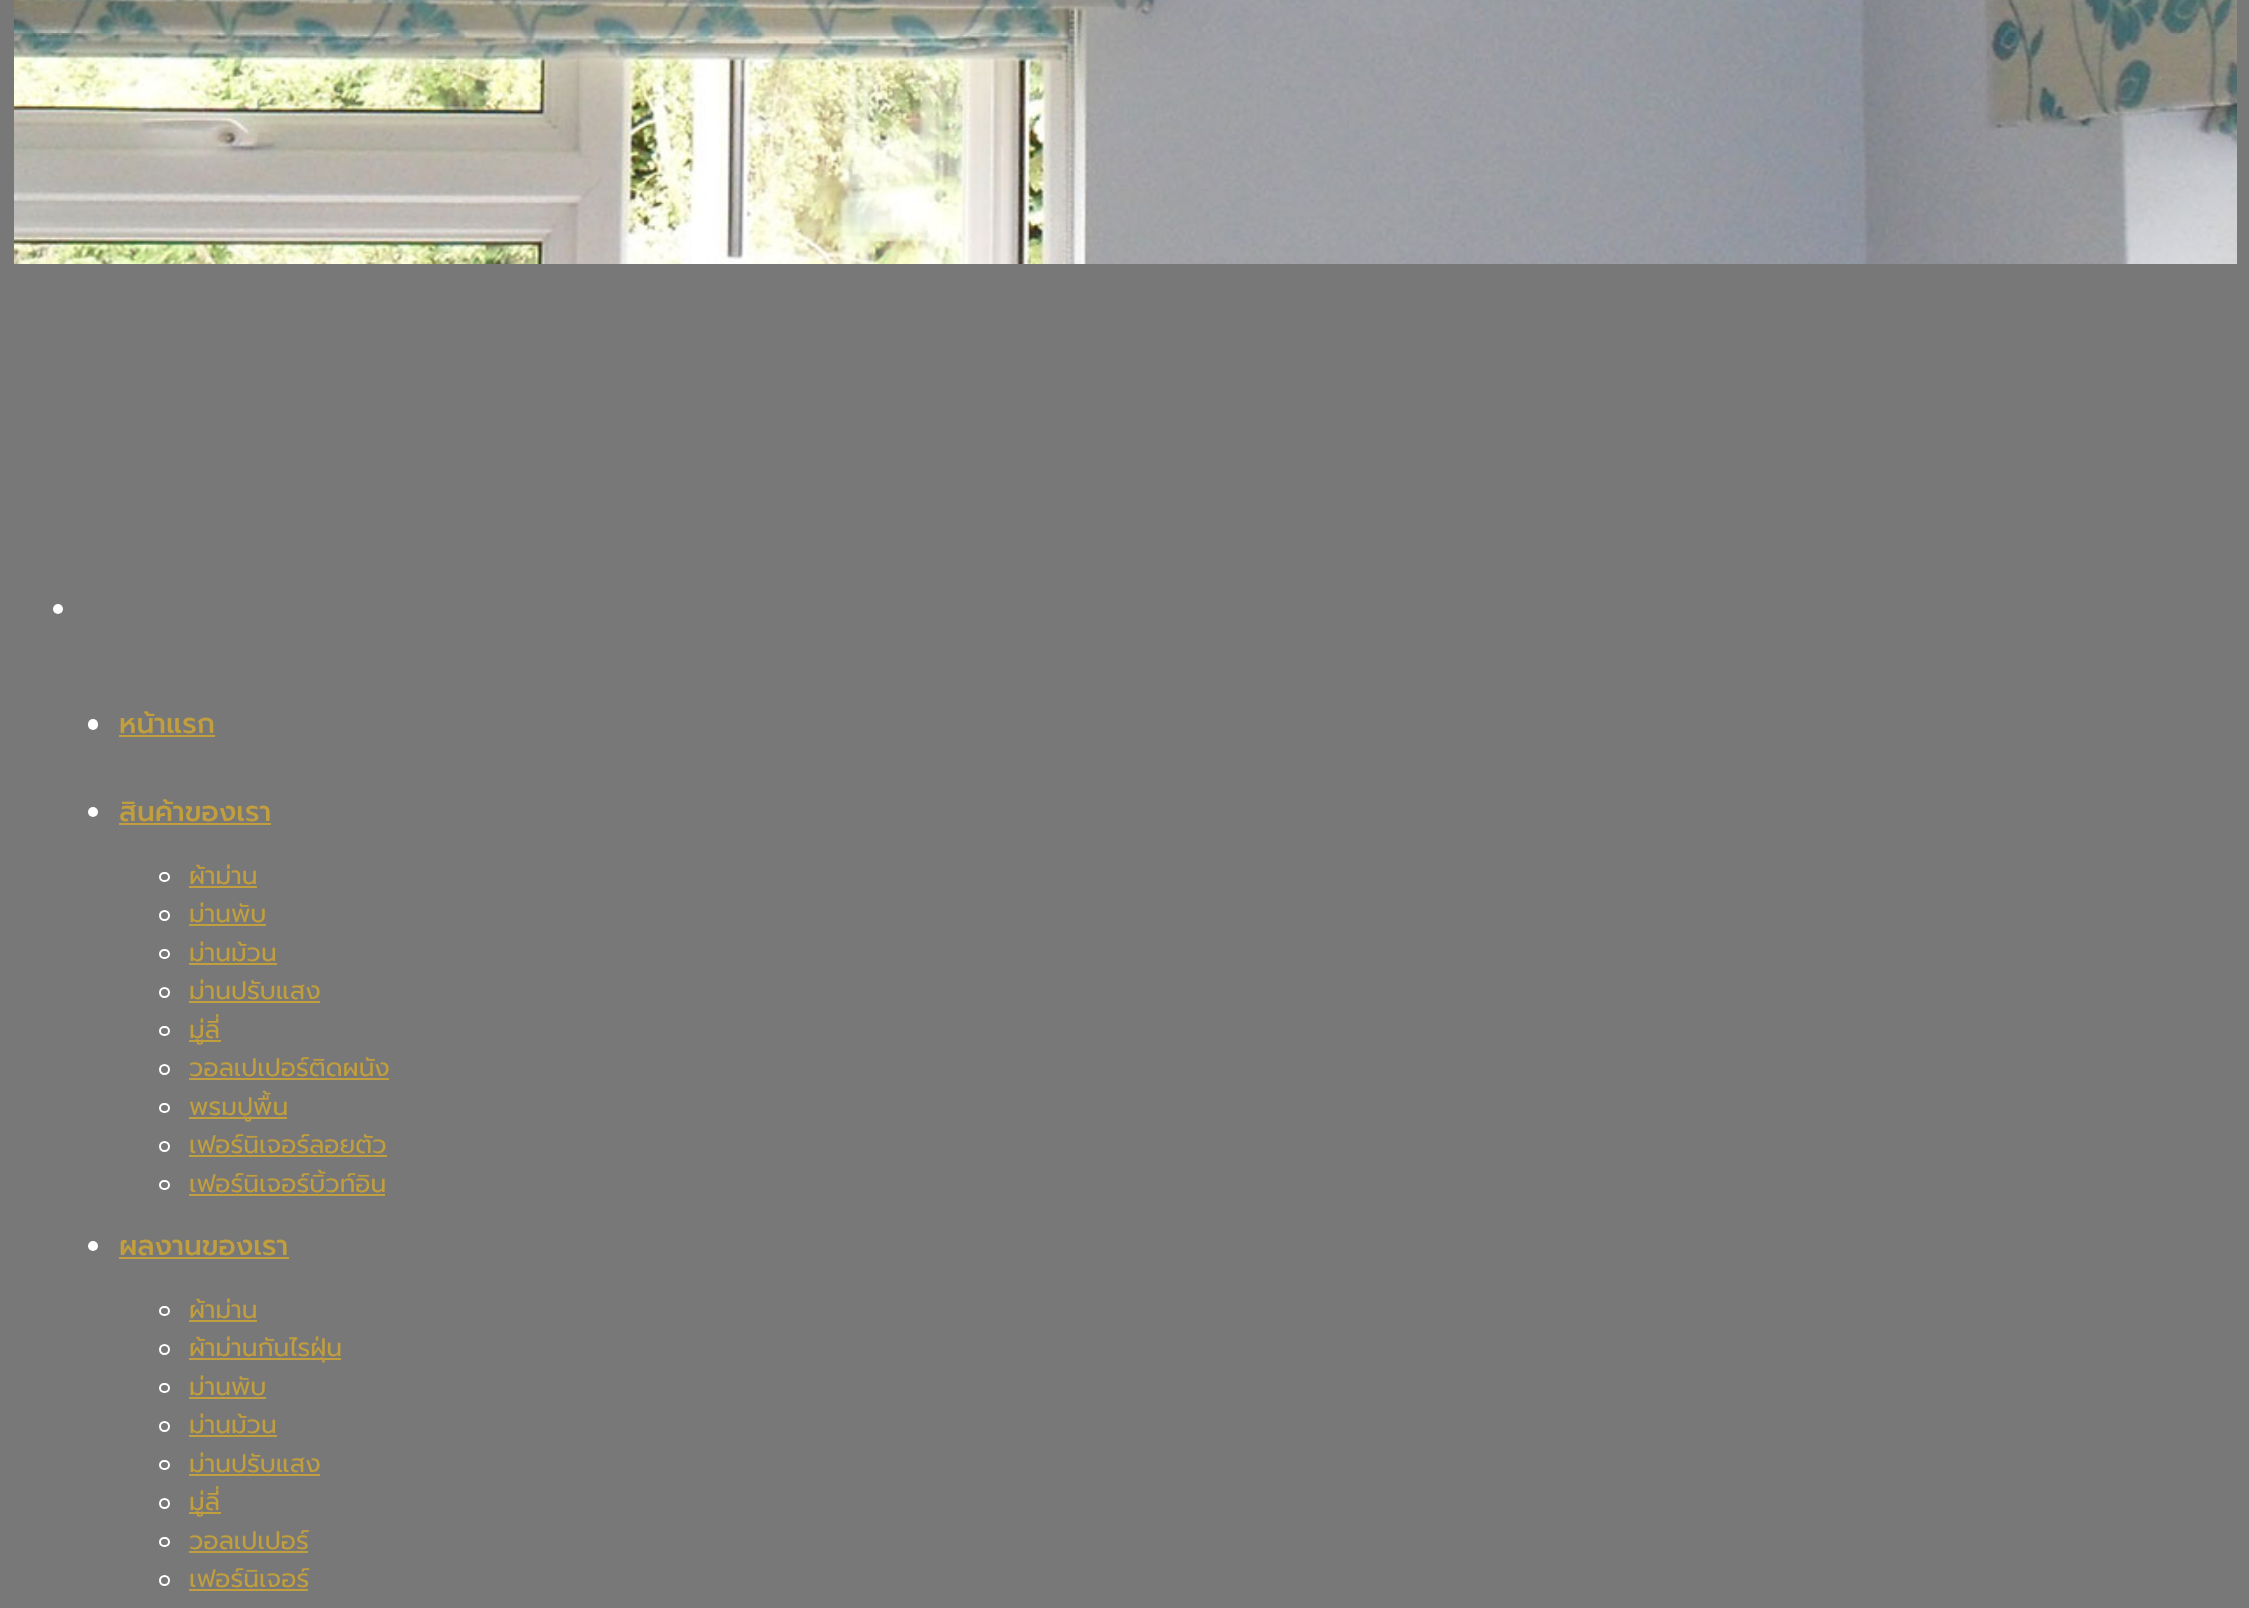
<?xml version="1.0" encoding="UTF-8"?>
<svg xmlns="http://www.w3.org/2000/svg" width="2249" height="1608">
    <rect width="100%" height="100%" fill="#787878"/>
    <image x="14" y="0" width="2223" height="264" href="img_01.png"/>
    <circle cx="58" cy="609" r="5" fill="#FFFFFF"/>
    <rect x="88" y="719" width="10" height="11" rx="5" fill="#FFFFFF"/>
    <text x="119" y="733" font-family="Prompt" font-size="28" font-weight="500" fill="#C19E3E">หน้าแรก</text>
    <rect x="119" y="735" width="96" height="2" fill="#C19E3E"/>
    <circle cx="93" cy="812" r="5" fill="#FFFFFF"/>
    <text x="119" y="821" font-family="Prompt" font-size="28" font-weight="500" fill="#C19E3E">สินค้าของเรา</text>
    <rect x="119" y="823" width="152" height="2" fill="#C19E3E"/>
    <rect x="160" y="873" width="9" height="8" rx="4" fill="none" stroke="#FFFFFF" stroke-width="2"/>
    <text x="189" y="884" font-family="Prompt" font-size="25" fill="#C19E3E">ผ้าม่าน</text>
    <rect x="189" y="886" width="68" height="2" fill="#C19E3E"/>
    <circle cx="164.5" cy="915.5" r="4.5" fill="none" stroke="#FFFFFF" stroke-width="2"/>
    <text x="189" y="922" font-family="Prompt" font-size="25" fill="#C19E3E">ม่านพับ</text>
    <rect x="189" y="924" width="77" height="2" fill="#C19E3E"/>
    <rect x="160" y="950" width="9" height="8" rx="4" fill="none" stroke="#FFFFFF" stroke-width="2"/>
    <text x="189" y="961" font-family="Prompt" font-size="25" fill="#C19E3E">ม่านม้วน</text>
    <rect x="189" y="963" width="88" height="2" fill="#C19E3E"/>
    <circle cx="164.5" cy="992.5" r="4.5" fill="none" stroke="#FFFFFF" stroke-width="2"/>
    <text x="189" y="999" font-family="Prompt" font-size="25" fill="#C19E3E">ม่านปรับแสง</text>
    <rect x="189" y="1001" width="131" height="2" fill="#C19E3E"/>
    <rect x="160" y="1027" width="9" height="8" rx="4" fill="none" stroke="#FFFFFF" stroke-width="2"/>
    <rect x="189" y="1040" width="32" height="2" fill="#C19E3E"/>
    <text x="189" y="1038" font-family="Prompt" font-size="25" fill="#C19E3E">มู่ลี่</text>
    <circle cx="164.5" cy="1069.5" r="4.5" fill="none" stroke="#FFFFFF" stroke-width="2"/>
    <text x="189" y="1076" font-family="Prompt" font-size="25" fill="#C19E3E">วอลเปเปอร์ติดผนัง</text>
    <rect x="189" y="1078" width="200" height="2" fill="#C19E3E"/>
    <rect x="160" y="1104" width="9" height="8" rx="4" fill="none" stroke="#FFFFFF" stroke-width="2"/>
    <rect x="189" y="1117" width="98" height="2" fill="#C19E3E"/>
    <text x="189" y="1115" font-family="Prompt" font-size="25" fill="#C19E3E">พรมปูพื้น</text>
    <circle cx="164.5" cy="1146.5" r="4.5" fill="none" stroke="#FFFFFF" stroke-width="2"/>
    <text x="189" y="1153" font-family="Prompt" font-size="25" fill="#C19E3E">เฟอร์นิเจอร์ลอยตัว</text>
    <rect x="189" y="1155" width="198" height="2" fill="#C19E3E"/>
    <rect x="160" y="1181" width="9" height="8" rx="4" fill="none" stroke="#FFFFFF" stroke-width="2"/>
    <text x="189" y="1192" font-family="Prompt" font-size="25" fill="#C19E3E">เฟอร์นิเจอร์บิ้วท์อิน</text>
    <rect x="189" y="1194" width="196" height="2" fill="#C19E3E"/>
    <circle cx="93" cy="1246" r="5" fill="#FFFFFF"/>
    <text x="119" y="1255" font-family="Prompt" font-size="28" font-weight="500" fill="#C19E3E">ผลงานของเรา</text>
    <rect x="119" y="1257" width="170" height="2" fill="#C19E3E"/>
    <rect x="160" y="1307" width="9" height="8" rx="4" fill="none" stroke="#FFFFFF" stroke-width="2"/>
    <text x="189" y="1318" font-family="Prompt" font-size="25" fill="#C19E3E">ผ้าม่าน</text>
    <rect x="189" y="1320" width="68" height="2" fill="#C19E3E"/>
    <circle cx="164.5" cy="1349.5" r="4.5" fill="none" stroke="#FFFFFF" stroke-width="2"/>
    <rect x="189" y="1358" width="152" height="2" fill="#C19E3E"/>
    <text x="189" y="1356" font-family="Prompt" font-size="25" fill="#C19E3E">ผ้าม่านกันไรฝุ่น</text>
    <rect x="160" y="1384" width="9" height="8" rx="4" fill="none" stroke="#FFFFFF" stroke-width="2"/>
    <text x="189" y="1395" font-family="Prompt" font-size="25" fill="#C19E3E">ม่านพับ</text>
    <rect x="189" y="1397" width="77" height="2" fill="#C19E3E"/>
    <circle cx="164.5" cy="1426.5" r="4.5" fill="none" stroke="#FFFFFF" stroke-width="2"/>
    <text x="189" y="1433" font-family="Prompt" font-size="25" fill="#C19E3E">ม่านม้วน</text>
    <rect x="189" y="1435" width="88" height="2" fill="#C19E3E"/>
    <rect x="160" y="1461" width="9" height="8" rx="4" fill="none" stroke="#FFFFFF" stroke-width="2"/>
    <text x="189" y="1472" font-family="Prompt" font-size="25" fill="#C19E3E">ม่านปรับแสง</text>
    <rect x="189" y="1474" width="131" height="2" fill="#C19E3E"/>
    <circle cx="164.5" cy="1503.5" r="4.5" fill="none" stroke="#FFFFFF" stroke-width="2"/>
    <rect x="189" y="1512" width="32" height="2" fill="#C19E3E"/>
    <text x="189" y="1510" font-family="Prompt" font-size="25" fill="#C19E3E">มู่ลี่</text>
    <rect x="160" y="1538" width="9" height="8" rx="4" fill="none" stroke="#FFFFFF" stroke-width="2"/>
    <text x="189" y="1549" font-family="Prompt" font-size="25" fill="#C19E3E">วอลเปเปอร์</text>
    <rect x="189" y="1551" width="119" height="2" fill="#C19E3E"/>
    <circle cx="164.5" cy="1580.5" r="4.5" fill="none" stroke="#FFFFFF" stroke-width="2"/>
    <text x="189" y="1587" font-family="Prompt" font-size="25" fill="#C19E3E">เฟอร์นิเจอร์</text>
    <rect x="189" y="1589" width="119" height="2" fill="#C19E3E"/>
</svg>
